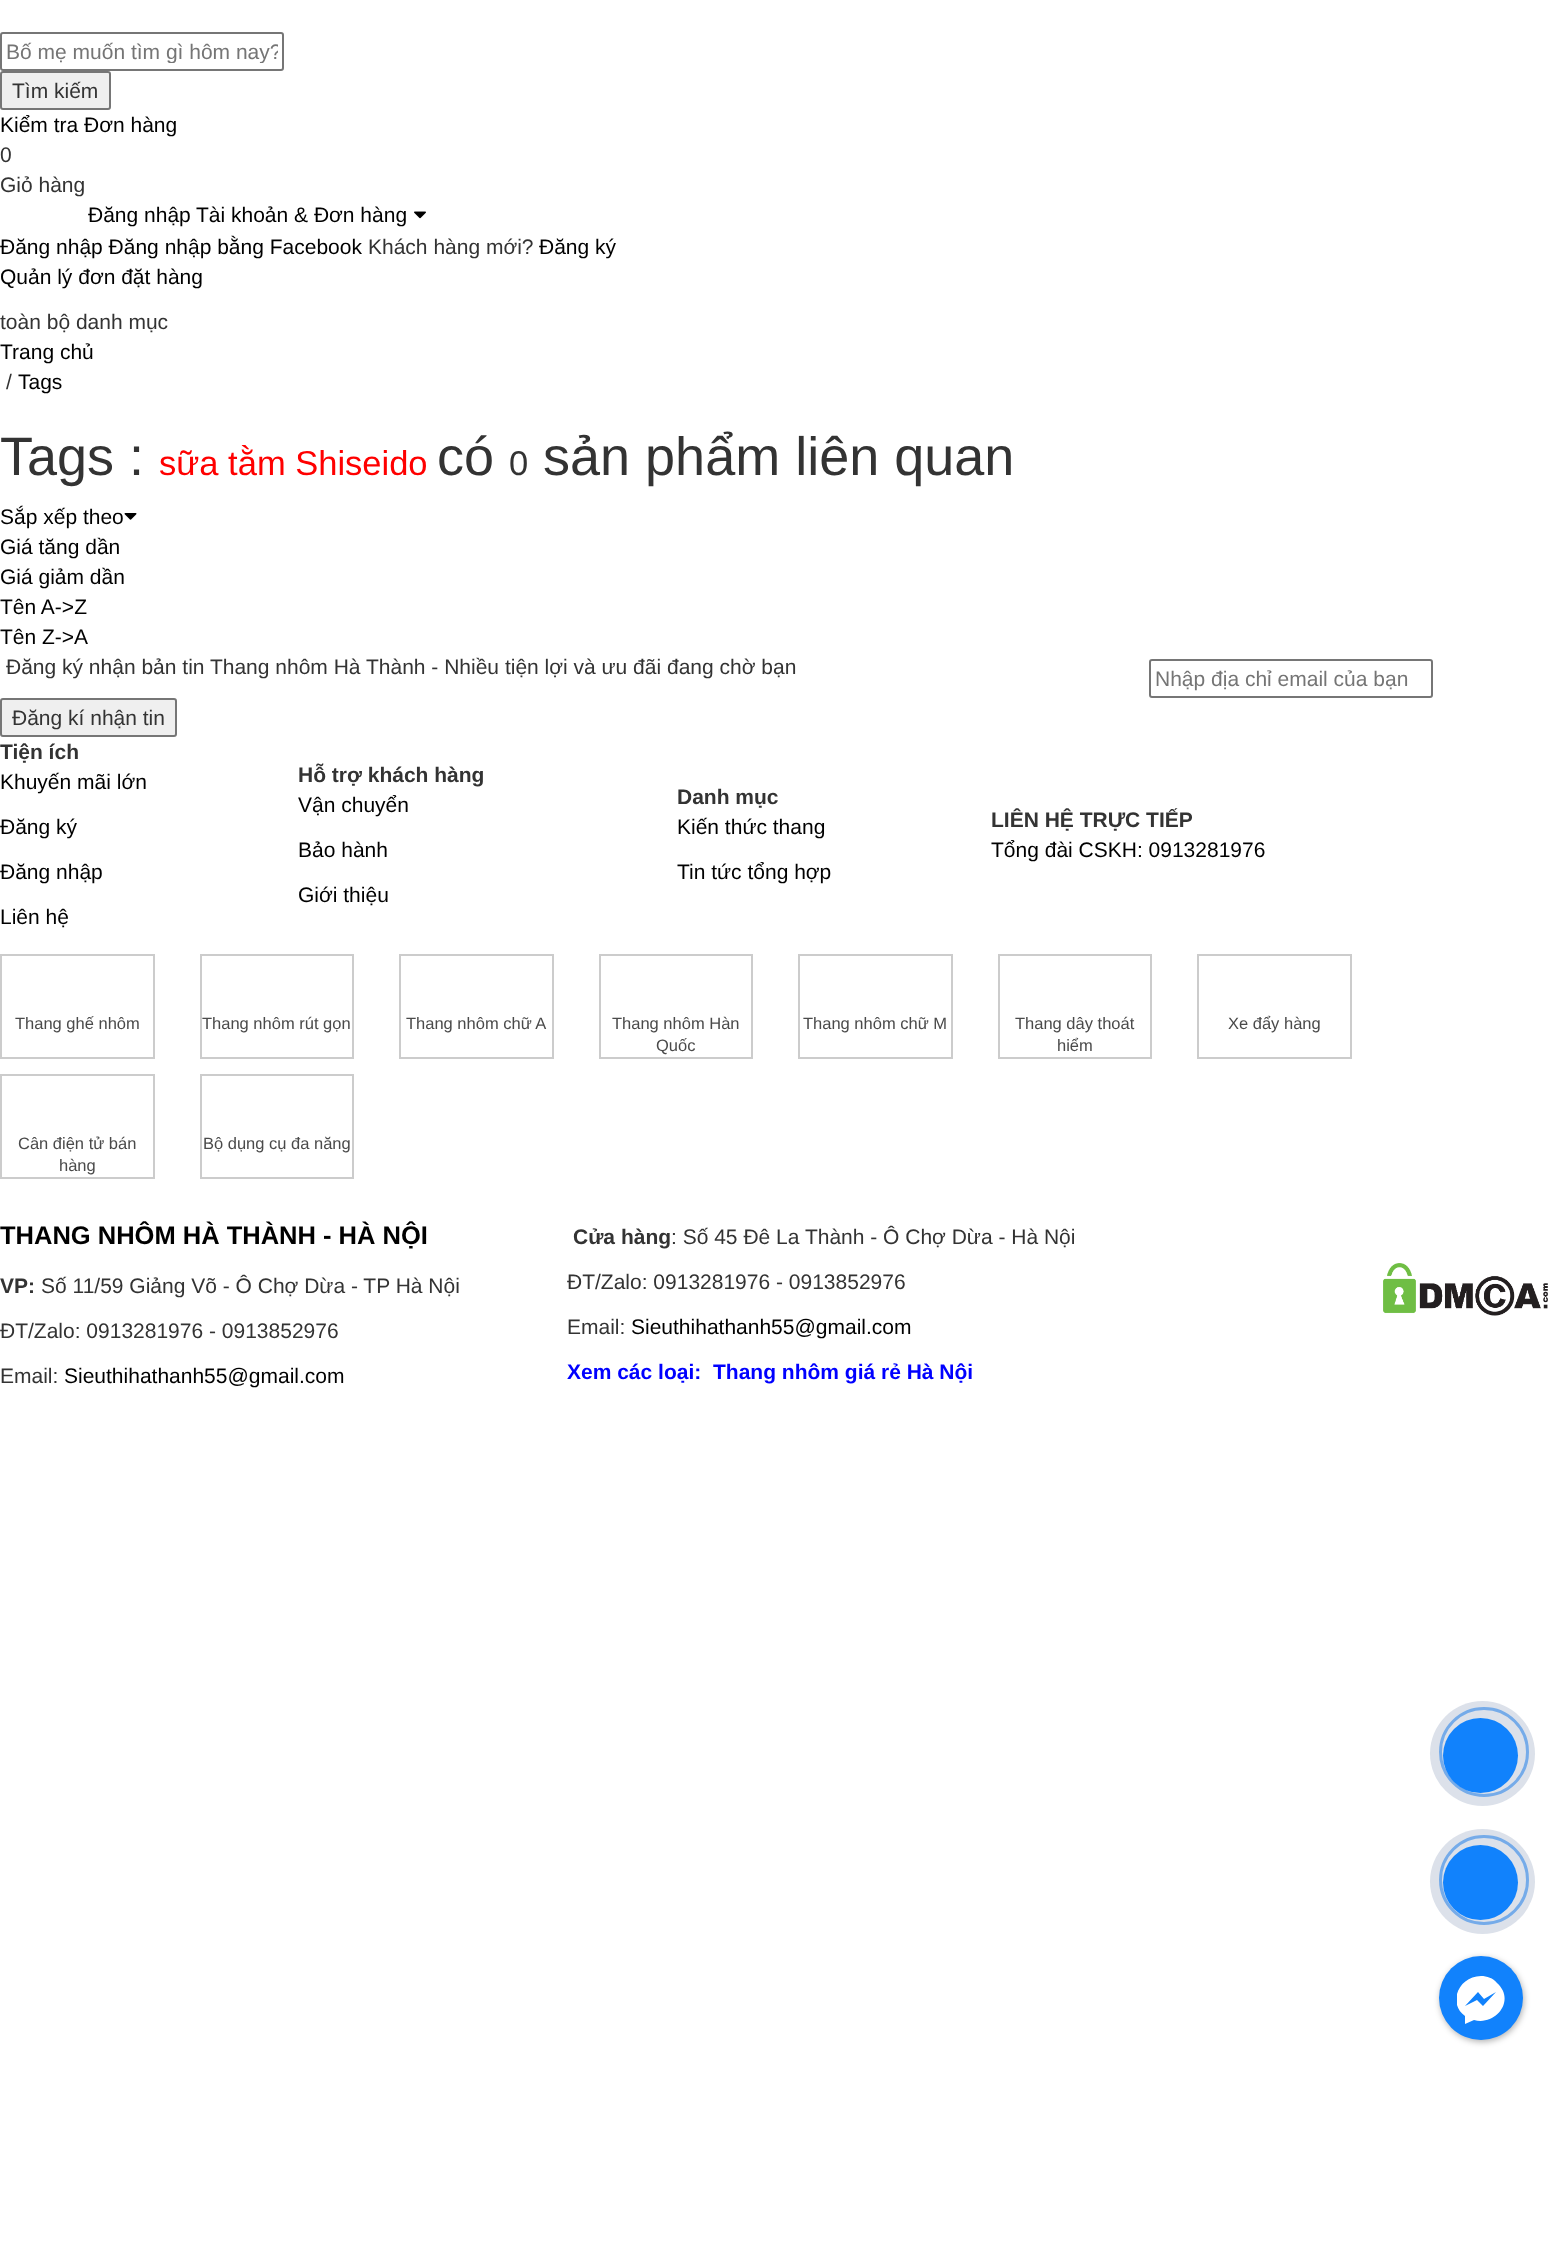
<?xml version="1.0" encoding="UTF-8"?>
<svg xmlns="http://www.w3.org/2000/svg" width="1548" height="2264">
    <defs>
        <clipPath id="clip1"><rect x="6" y="39" width="272" height="24"/></clipPath>
        <filter id="blur1" x="-50%" y="-200%" width="200%" height="500%"><feGaussianBlur stdDeviation="3"/></filter>
        <clipPath id="clip2"><rect x="1457" y="1976" width="48" height="49"/></clipPath>
    </defs>
    <rect width="100%" height="100%" fill="#FFFFFF"/>
    <rect x="1" y="33" width="282" height="37" rx="2" fill="none" stroke="#767676" stroke-width="2"/>
    <g clip-path="url(#clip1)">
        <text x="6" y="59" font-family="Liberation Sans" font-size="21" fill="#757575">Bố mẹ muốn tìm gì hôm nay?</text>
    </g>
    <rect x="1" y="72" width="109" height="37" rx="2" fill="#EFEFEF" stroke="#767676" stroke-width="2"/>
    <text x="12" y="98" font-family="Liberation Sans" font-size="21" fill="#333333">Tìm kiếm</text>
    <text x="0" y="132" font-family="Liberation Sans" font-size="21" fill="#000000">Kiểm tra Đơn hàng</text>
    <text font-family="Liberation Sans" font-size="21" fill="#333333">
        <tspan x="0" y="162">0</tspan>
        <tspan x="0" y="192">Giỏ hàng</tspan>
    </text>
    <text x="88" y="222" font-family="Liberation Sans" font-size="21" fill="#000000">Đăng nhập</text>
    <text x="196" y="222" font-family="Liberation Sans" font-size="21" fill="#000000">Tài khoản &amp; Đơn hàng</text>
    <image x="414" y="211" width="12" height="8" href="img_01.png"/>
    <text x="0" y="254" font-family="Liberation Sans" font-size="21" fill="#000000">Đăng nhập Đăng nhập bằng Facebook</text>
    <text x="368" y="254" font-family="Liberation Sans" font-size="21" fill="#333333">Khách hàng mới?</text>
    <text x="539" y="254" font-family="Liberation Sans" font-size="21" fill="#000000">Đăng ký</text>
    <text x="0" y="284" font-family="Liberation Sans" font-size="21" fill="#000000">Quản lý đơn đặt hàng</text>
    <text x="0" y="329" font-family="Liberation Sans" font-size="21" fill="#333333">toàn bộ danh mục</text>
    <text x="0" y="359" font-family="Liberation Sans" font-size="21" fill="#000000">Trang chủ</text>
    <text x="6" y="389" font-family="Liberation Sans" font-size="21" fill="#333333">/</text>
    <text x="18" y="389" font-family="Liberation Sans" font-size="21" fill="#000000">Tags</text>
    <text x="0" y="475" font-family="Liberation Sans" font-size="54" fill="#333333">Tags :</text>
    <text x="159" y="475" font-family="Liberation Sans" font-size="34.5" fill="#FF0000">sữa tằm Shiseido</text>
    <text x="437" y="475" font-family="Liberation Sans" font-size="54" fill="#333333">có</text>
    <text x="509" y="475" font-family="Liberation Sans" font-size="34.5" fill="#333333">0</text>
    <text x="543" y="475" font-family="Liberation Sans" font-size="54" fill="#333333">sản phẩm liên quan</text>
    <text x="0" y="524" font-family="Liberation Sans" font-size="21" fill="#000000">Sắp xếp theo</text>
    <image x="124" y="513" width="13" height="7" href="img_02.png"/>
    <text font-family="Liberation Sans" font-size="21" fill="#000000">
        <tspan x="0" y="554">Giá tăng dần</tspan>
        <tspan x="0" y="584">Giá giảm dần</tspan>
        <tspan x="0" y="614">Tên A-&gt;Z</tspan>
        <tspan x="0" y="644">Tên Z-&gt;A</tspan>
    </text>
    <text x="6" y="674" font-family="Liberation Sans" font-size="21" fill="#333333">Đăng ký nhận bản tin Thang nhôm Hà Thành - Nhiều tiện lợi và ưu đãi đang chờ bạn</text>
    <rect x="1150" y="660" width="282" height="37" rx="2" fill="none" stroke="#767676" stroke-width="2"/>
    <text x="1155" y="686" font-family="Liberation Sans" font-size="21" fill="#757575">Nhập địa chỉ email của bạn</text>
    <rect x="1" y="699" width="175" height="37" rx="2" fill="#EFEFEF" stroke="#767676" stroke-width="2"/>
    <text x="12" y="725" font-family="Liberation Sans" font-size="21" fill="#333333">Đăng kí nhận tin</text>
    <text x="0" y="759" font-family="Liberation Sans" font-size="21" font-weight="700" fill="#333333">Tiện ích</text>
    <text x="0" y="789" font-family="Liberation Sans" font-size="21" fill="#000000">Khuyến mãi lớn</text>
    <text x="0" y="834" font-family="Liberation Sans" font-size="21" fill="#000000">Đăng ký</text>
    <text x="0" y="879" font-family="Liberation Sans" font-size="21" fill="#000000">Đăng nhập</text>
    <text x="0" y="924" font-family="Liberation Sans" font-size="21" fill="#000000">Liên hệ</text>
    <text x="298" y="782" font-family="Liberation Sans" font-size="21" font-weight="700" fill="#333333">Hỗ trợ khách hàng</text>
    <text x="298" y="812" font-family="Liberation Sans" font-size="21" fill="#000000">Vận chuyển</text>
    <text x="298" y="857" font-family="Liberation Sans" font-size="21" fill="#000000">Bảo hành</text>
    <text x="298" y="902" font-family="Liberation Sans" font-size="21" fill="#000000">Giới thiệu</text>
    <text x="677" y="804" font-family="Liberation Sans" font-size="21" font-weight="700" fill="#333333">Danh mục</text>
    <text x="677" y="834" font-family="Liberation Sans" font-size="21" fill="#000000">Kiến thức thang</text>
    <text x="677" y="879" font-family="Liberation Sans" font-size="21" fill="#000000">Tin tức tổng hợp</text>
    <text x="991" y="827" font-family="Liberation Sans" font-size="21" font-weight="700" fill="#333333">LIÊN HỆ TRỰC TIẾP</text>
    <text x="991" y="857" font-family="Liberation Sans" font-size="21" fill="#000000">Tổng đài CSKH: 0913281976</text>
    <rect x="1" y="955" width="153" height="103" fill="none" stroke="#CCCCCC" stroke-width="2"/>
    <text x="15" y="1029" font-family="Liberation Sans" font-size="16.5" fill="#4A4A4A">Thang ghế nhôm</text>
    <rect x="201" y="955" width="152" height="103" fill="none" stroke="#CCCCCC" stroke-width="2"/>
    <text x="202" y="1029" font-family="Liberation Sans" font-size="16.5" fill="#4A4A4A">Thang nhôm rút gọn</text>
    <rect x="400" y="955" width="153" height="103" fill="none" stroke="#CCCCCC" stroke-width="2"/>
    <text x="406" y="1029" font-family="Liberation Sans" font-size="16.5" fill="#4A4A4A">Thang nhôm chữ A</text>
    <rect x="600" y="955" width="152" height="103" fill="none" stroke="#CCCCCC" stroke-width="2"/>
    <text x="612" y="1029" font-family="Liberation Sans" font-size="16.5" fill="#4A4A4A">Thang nhôm Hàn</text>
    <text x="656" y="1051" font-family="Liberation Sans" font-size="16.5" fill="#4A4A4A">Quốc</text>
    <rect x="799" y="955" width="153" height="103" fill="none" stroke="#CCCCCC" stroke-width="2"/>
    <text x="803" y="1029" font-family="Liberation Sans" font-size="16.5" fill="#4A4A4A">Thang nhôm chữ M</text>
    <rect x="999" y="955" width="152" height="103" fill="none" stroke="#CCCCCC" stroke-width="2"/>
    <text x="1015" y="1029" font-family="Liberation Sans" font-size="16.5" fill="#4A4A4A">Thang dây thoát</text>
    <text x="1057" y="1051" font-family="Liberation Sans" font-size="16.5" fill="#4A4A4A">hiểm</text>
    <rect x="1198" y="955" width="153" height="103" fill="none" stroke="#CCCCCC" stroke-width="2"/>
    <text x="1228" y="1029" font-family="Liberation Sans" font-size="16.5" fill="#4A4A4A">Xe đẩy hàng</text>
    <rect x="1" y="1075" width="153" height="103" fill="none" stroke="#CCCCCC" stroke-width="2"/>
    <text x="18" y="1149" font-family="Liberation Sans" font-size="16.5" fill="#4A4A4A">Cân điện tử bán</text>
    <text x="59" y="1171" font-family="Liberation Sans" font-size="16.5" fill="#4A4A4A">hàng</text>
    <rect x="201" y="1075" width="152" height="103" fill="none" stroke="#CCCCCC" stroke-width="2"/>
    <text x="203" y="1149" font-family="Liberation Sans" font-size="16.5" fill="#4A4A4A">Bộ dụng cụ đa năng</text>
    <text x="0" y="1244" font-family="Liberation Sans" font-size="25.5" font-weight="700" fill="#000000">THANG NHÔM HÀ THÀNH - HÀ NỘI</text>
    <text x="0" y="1293" font-family="Liberation Sans" font-size="21" font-weight="700" fill="#333333">VP:</text>
    <text x="41" y="1293" font-family="Liberation Sans" font-size="21" fill="#333333">Số 11/59 Giảng Võ - Ô Chợ Dừa - TP Hà Nội</text>
    <text x="0" y="1338" font-family="Liberation Sans" font-size="21" fill="#333333">ĐT/Zalo: 0913281976 - 0913852976</text>
    <text x="0" y="1383" font-family="Liberation Sans" font-size="21" fill="#333333">Email:</text>
    <text x="64" y="1383" font-family="Liberation Sans" font-size="21" fill="#000000">Sieuthihathanh55@gmail.com</text>
    <text x="573" y="1244" font-family="Liberation Sans" font-size="21" font-weight="700" fill="#333333">Cửa hàng</text>
    <text x="671" y="1244" font-family="Liberation Sans" font-size="21" fill="#333333">: Số 45 Đê La Thành - Ô Chợ Dừa - Hà Nội</text>
    <text x="567" y="1289" font-family="Liberation Sans" font-size="21" fill="#333333">ĐT/Zalo: 0913281976 - 0913852976</text>
    <text x="567" y="1334" font-family="Liberation Sans" font-size="21" fill="#333333">Email:</text>
    <text x="631" y="1334" font-family="Liberation Sans" font-size="21" fill="#000000">Sieuthihathanh55@gmail.com</text>
    <text x="567" y="1379" font-family="Liberation Sans" font-size="21" font-weight="700" fill="#0000FF">Xem các loại:</text>
    <text x="713" y="1379" font-family="Liberation Sans" font-size="21" font-weight="700" fill="#0000FF">Thang nhôm giá rẻ Hà Nội</text>
    <image x="1383" y="1263" width="165" height="53" href="img_03.png"/>
    <circle cx="1484" cy="1752" r="43.5" fill="none" stroke="#88C1FE" stroke-width="3"/>
    <circle cx="1482.5" cy="1753.5" r="52.5" fill="#072967" fill-opacity="0.14"/>
    <circle cx="1480.5" cy="1755.5" r="37.5" fill="#1182FC"/>
    <circle cx="1484" cy="1880" r="43.5" fill="none" stroke="#88C1FE" stroke-width="3"/>
    <circle cx="1482.5" cy="1881.5" r="52.5" fill="#072967" fill-opacity="0.14"/>
    <circle cx="1480.5" cy="1882.5" r="37.5" fill="#1182FC"/>
    <rect x="1440" y="1958" width="84" height="84" rx="42" fill="#000000" fill-opacity="0.3" filter="url(#blur1)"/>
    <circle cx="1481" cy="1998" r="42" fill="#1182FC"/>
    <g clip-path="url(#clip2)">
        <path d="M 1481 1976 C 1459 1976 1447 2003 1465 2016 V 2024 L 1474 2020 C 1496 2026 1516 2000 1497 1983 C 1493 1978 1487 1976 1481 1976 Z M 1483 2006 L 1477 2000 L 1465 2006 L 1478 1992 L 1484 1999 L 1496 1992 Z" fill="#FFFFFF"/>
    </g>
</svg>
